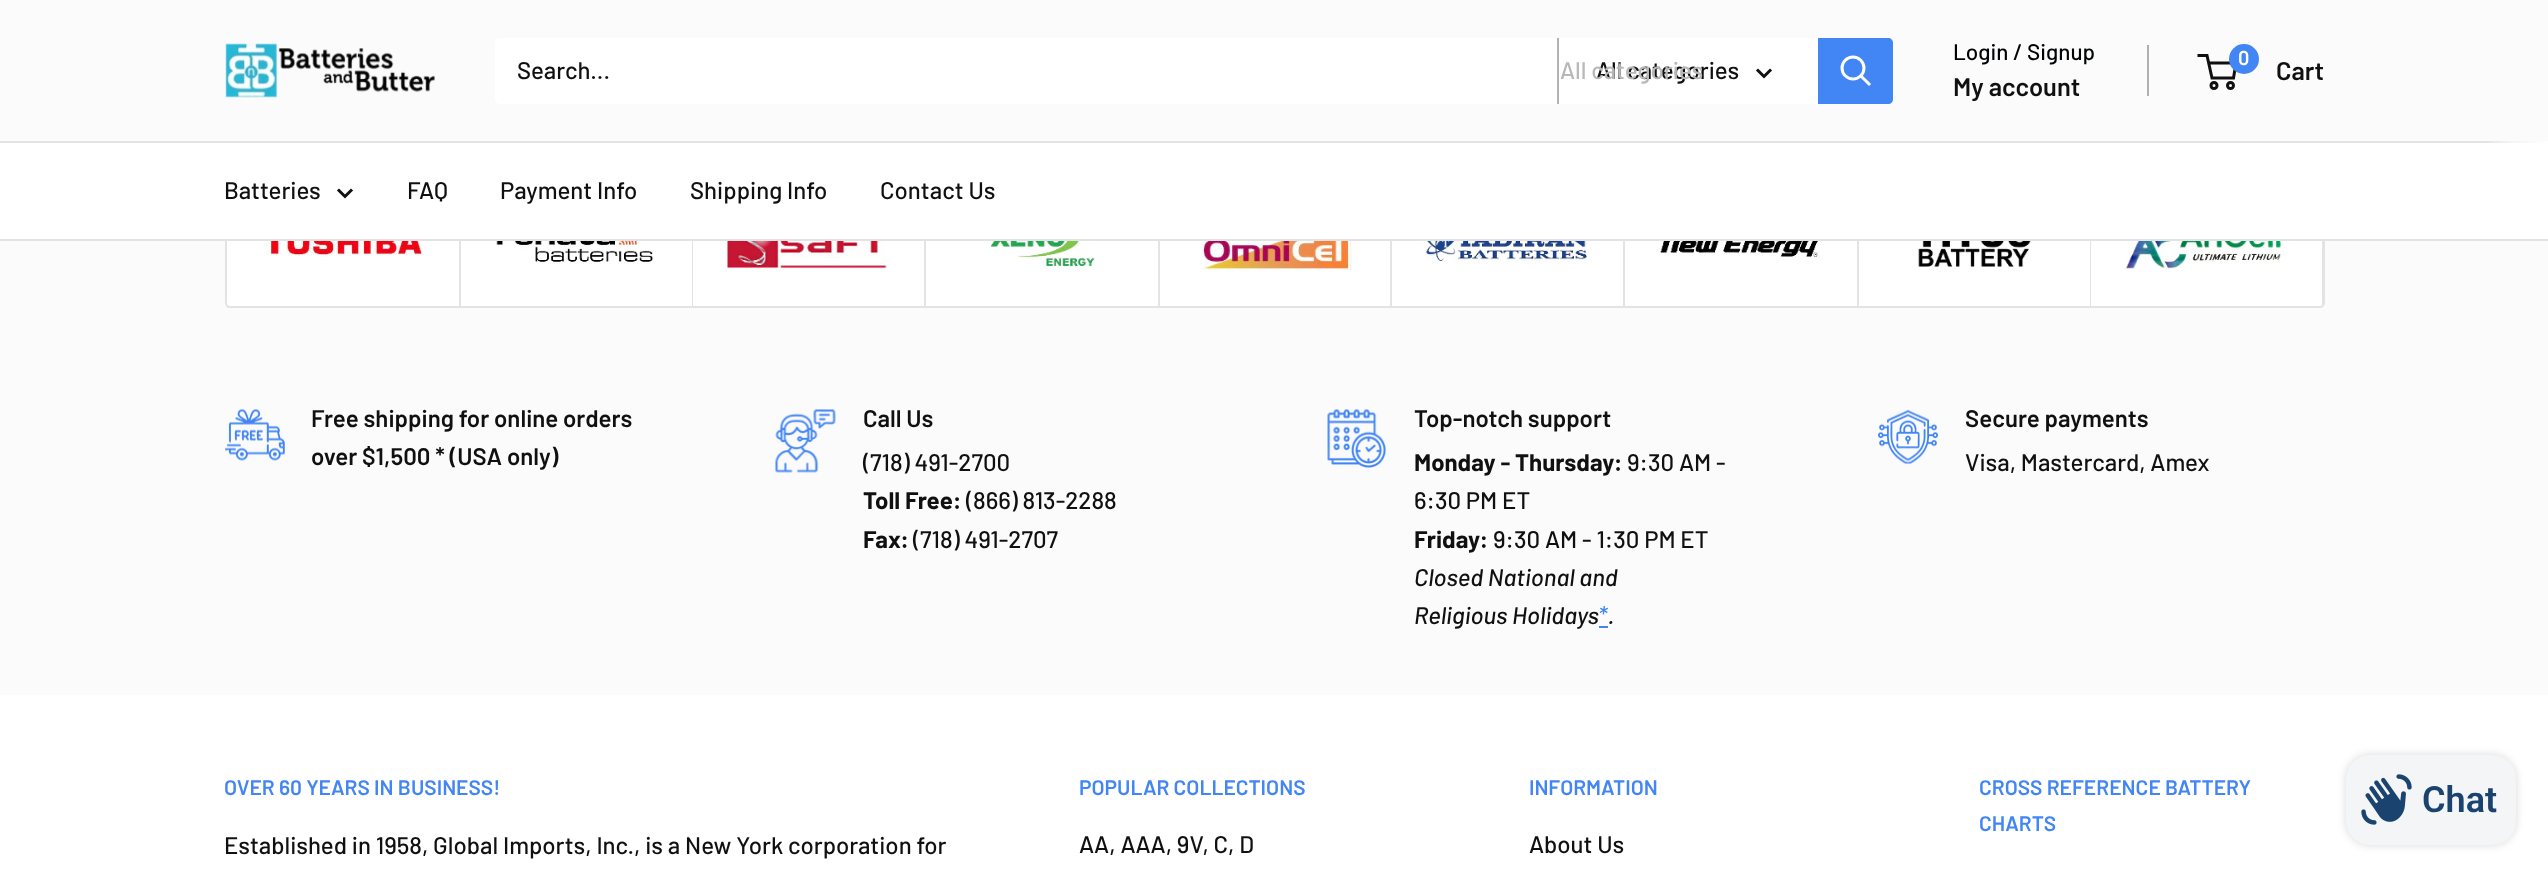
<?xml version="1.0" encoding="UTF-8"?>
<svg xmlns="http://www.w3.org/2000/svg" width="2548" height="876">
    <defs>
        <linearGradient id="g1" gradientUnits="userSpaceOnUse" x1="2489" y1="190" x2="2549" y2="190"><stop offset="0" stop-color="#FFFFFF" stop-opacity="0.1"/><stop offset="0.35" stop-color="#FFFFFF" stop-opacity="0.6"/><stop offset="1" stop-color="#FFFFFF"/></linearGradient>
        <filter id="blur1" x="-50%" y="-200%" width="200%" height="500%"><feGaussianBlur stdDeviation="4"/></filter>
    </defs>
    <rect width="100%" height="100%" fill="#FBFBFB"/>
    <rect x="226" y="55" width="2098" height="252" rx="4" fill="#FFFFFF" stroke="#E1E3E4" stroke-width="2"/>
    <rect x="225" y="54" width="2100" height="87" fill="#FBFBFB"/>
    <image x="225" y="43" width="210" height="55" href="img_01.png"/>
    <rect x="495" y="38" width="1398" height="66" rx="5" fill="#FFFFFF"/>
    <text x="517" y="79" font-family="Barlow" font-size="24" font-weight="500" fill="#101010">Search...</text>
    <rect x="1557" y="38" width="2" height="66" fill="#B3B3B3"/>
    <text x="1596" y="79" font-family="Barlow" font-size="24" font-weight="500" fill="#101010">All categories</text>
    <text x="1560" y="79" font-family="Barlow" font-size="24" font-weight="500" fill="#B8B8B8">All categories</text>
    <path d="M 1770 70.5 L 1764 76.5 L 1758 70.5" fill="none" stroke="#101010" stroke-width="3" stroke-linecap="square"/>
    <path d="M 1818 38 H 1888 C 1891 38 1893 40 1893 43 V 99 C 1893 102 1891 104 1888 104 H 1818 Z" fill="#4285F4"/>
    <path d="M 1869 84 L 1861.5 76.5" fill="none" stroke="#FFFFFF" stroke-width="3" stroke-linecap="square"/>
    <circle cx="1853" cy="68" r="11" fill="none" stroke="#FFFFFF" stroke-width="3"/>
    <text x="1953" y="60" font-family="Barlow" font-size="22.5" font-weight="500" fill="#000203">Login / Signup</text>
    <rect x="2147" y="45" width="2" height="51" fill="#B0B0B1"/>
    <text x="1953" y="96" font-family="Barlow" font-size="25.5" font-weight="600" fill="#101010">My account</text>
    <circle cx="2214" cy="85.5" r="3" fill="none" stroke="#101010" stroke-width="3"/>
    <circle cx="2230.5" cy="85.5" r="3" fill="none" stroke="#101010" stroke-width="3"/>
    <path d="M 2208.5 63 H 2236 L 2233.5 78 H 2212 L 2207 55.5 H 2197.5" fill="none" stroke="#101010" stroke-width="3"/>
    <circle cx="2244" cy="59" r="15" fill="#4285F4"/>
    <text x="2238" y="65" font-family="Barlow" font-size="20" font-weight="600" fill="#FFFFFF">0</text>
    <text x="2276" y="80" font-family="Barlow" font-size="25.5" font-weight="600" fill="#101010">Cart</text>
    <rect x="1158" y="241" width="2" height="65" fill="#E1E3E4"/>
    <path d="M 1158 306 V 308 H 1391 V 183 H 1390 V 306 Z" fill="#E1E3E4"/>
    <rect x="0" y="143" width="2548" height="96" fill="#FFFFFF"/>
    <rect x="0" y="239" width="2548" height="2" fill="#E1E3E4"/>
    <rect x="0" y="141" width="2548" height="2" fill="#E3E3E3"/>
    <rect x="2489" y="141" width="59" height="2" fill="url(#g1)"/>
    <text x="224" y="199" font-family="Barlow" font-size="24" font-weight="500" fill="#101010">Batteries</text>
    <path d="M 351 190.5 L 345 196.5 L 339 190.5" fill="none" stroke="#101010" stroke-width="3" stroke-linecap="square"/>
    <text x="407" y="199" font-family="Barlow" font-size="24" font-weight="500" fill="#101010">FAQ</text>
    <text x="500" y="199" font-family="Barlow" font-size="24" font-weight="500" fill="#101010">Payment Info</text>
    <text x="690" y="199" font-family="Barlow" font-size="24" font-weight="500" fill="#101010">Shipping Info</text>
    <text x="880" y="199" font-family="Barlow" font-size="24" font-weight="500" fill="#101010">Contact Us</text>
    <rect x="227" y="307" width="2" height="1" fill="#E1E3E4"/>
    <rect x="459" y="241" width="2" height="65" fill="#E1E3E4"/>
    <image x="262" y="241" width="160" height="16" href="img_02.png"/>
    <rect x="692" y="241" width="1" height="65" fill="#E1E3E4"/>
    <image x="496" y="241" width="157" height="23" href="img_03.png"/>
    <rect x="924" y="241" width="2" height="65" fill="#E1E3E4"/>
    <image x="727" y="241" width="160" height="29" href="img_04.png"/>
    <image x="987" y="241" width="108" height="29" href="img_05.png"/>
    <rect x="1391" y="241" width="1" height="65" fill="#E1E3E4"/>
    <image x="1200" y="241" width="153" height="29" href="img_06.png"/>
    <rect x="1623" y="241" width="2" height="65" fill="#E1E3E4"/>
    <image x="1426" y="241" width="161" height="23" href="img_07.png"/>
    <rect x="1857" y="241" width="2" height="65" fill="#E1E3E4"/>
    <image x="1659" y="241" width="160" height="16" href="img_08.png"/>
    <rect x="2090" y="241" width="1" height="65" fill="#E1E3E4"/>
    <image x="1914" y="241" width="126" height="26" href="img_09.png"/>
    <rect x="2321" y="307" width="1" height="1" fill="#E1E3E4"/>
    <rect x="2322" y="241" width="1" height="65" fill="#E1E3E4"/>
    <image x="2125" y="241" width="159" height="29" href="img_10.png"/>
    <image x="225" y="409" width="60" height="52" href="img_11.png"/>
    <text font-family="Barlow" font-size="24" font-weight="600" fill="#101010">
        <tspan x="311" y="427">Free shipping for online orders</tspan>
        <tspan x="311" y="465">over $1,500 * (USA only)</tspan>
    </text>
    <image x="775" y="409" width="61" height="64" href="img_12.png"/>
    <text x="863" y="427" font-family="Barlow" font-size="24" font-weight="600" fill="#101010">Call Us</text>
    <text x="863" y="471" font-family="Barlow" font-size="24" font-weight="500" fill="#101010">(718) 491-2700</text>
    <text x="863" y="509" font-family="Barlow" font-size="24" font-weight="700" fill="#101010">Toll Free:</text>
    <text x="966" y="509" font-family="Barlow" font-size="24" font-weight="500" fill="#101010">(866) 813-2288</text>
    <text x="863" y="548" font-family="Barlow" font-size="24" font-weight="700" fill="#101010">Fax:</text>
    <text x="913" y="548" font-family="Barlow" font-size="24" font-weight="500" fill="#101010">(718) 491-2707</text>
    <image x="1327" y="409" width="59" height="59" href="img_13.png"/>
    <text x="1414" y="427" font-family="Barlow" font-size="24" font-weight="600" fill="#101010">Top-notch support</text>
    <text x="1414" y="471" font-family="Barlow" font-size="24" font-weight="700" fill="#101010">Monday - Thursday:</text>
    <text x="1627" y="471" font-family="Barlow" font-size="24" font-weight="500" fill="#101010">9:30 AM -</text>
    <text x="1414" y="509" font-family="Barlow" font-size="24" font-weight="500" fill="#101010">6:30 PM ET</text>
    <text x="1414" y="548" font-family="Barlow" font-size="24" font-weight="700" fill="#101010">Friday:</text>
    <text x="1493" y="548" font-family="Barlow" font-size="24" font-weight="500" fill="#101010">9:30 AM - 1:30 PM ET</text>
    <text font-family="Barlow" font-size="24" font-weight="500" font-style="italic" fill="#101010">
        <tspan x="1414" y="586">Closed National and</tspan>
        <tspan x="1414" y="624">Religious Holidays</tspan>
    </text>
    <text x="1598" y="624" font-family="Barlow" font-size="24" font-weight="500" font-style="italic" fill="#4285F4">*</text>
    <rect x="1599" y="626" width="9" height="2" fill="#4285F4"/>
    <text x="1608" y="624" font-family="Barlow" font-size="24" font-weight="500" font-style="italic" fill="#101010">.</text>
    <image x="1878" y="409" width="60" height="55" href="img_14.png"/>
    <text x="1965" y="427" font-family="Barlow" font-size="24" font-weight="600" fill="#101010">Secure payments</text>
    <text x="1965" y="471" font-family="Barlow" font-size="24" font-weight="500" fill="#101010">Visa, Mastercard, Amex</text>
    <rect x="0" y="695" width="2548" height="181" fill="#FFFFFF"/>
    <text x="224" y="795" font-family="Barlow" font-size="21" font-weight="600" fill="#4285F4">OVER 60 YEARS IN BUSINESS!</text>
    <text x="224" y="854" font-family="Barlow" font-size="24" font-weight="500" fill="#101010">Established in 1958, Global Imports, Inc., is a New York corporation for</text>
    <text x="1079" y="795" font-family="Barlow" font-size="21" font-weight="600" fill="#4285F4">POPULAR COLLECTIONS</text>
    <text x="1079" y="853" font-family="Barlow" font-size="24" font-weight="500" fill="#101010">AA, AAA, 9V, C, D</text>
    <text x="1529" y="795" font-family="Barlow" font-size="21" font-weight="600" fill="#4285F4">INFORMATION</text>
    <text x="1529" y="853" font-family="Barlow" font-size="24" font-weight="500" fill="#101010">About Us</text>
    <text font-family="Barlow" font-size="21" font-weight="600" fill="#4285F4">
        <tspan x="1979" y="795">CROSS REFERENCE BATTERY</tspan>
        <tspan x="1979" y="831">CHARTS</tspan>
    </text>
    <rect x="2346" y="755" width="170" height="90" rx="24" fill="#000000" fill-opacity="0.15" filter="url(#blur1)"/>
    <rect x="2346" y="755" width="170" height="90" rx="24" fill="#F3F5F6"/>
    <image x="2361" y="774" width="51" height="51" href="img_15.png"/>
    <text x="2422" y="812" font-family="Roboto" font-size="36" font-weight="600" fill="#1A446F">Chat</text>
</svg>
